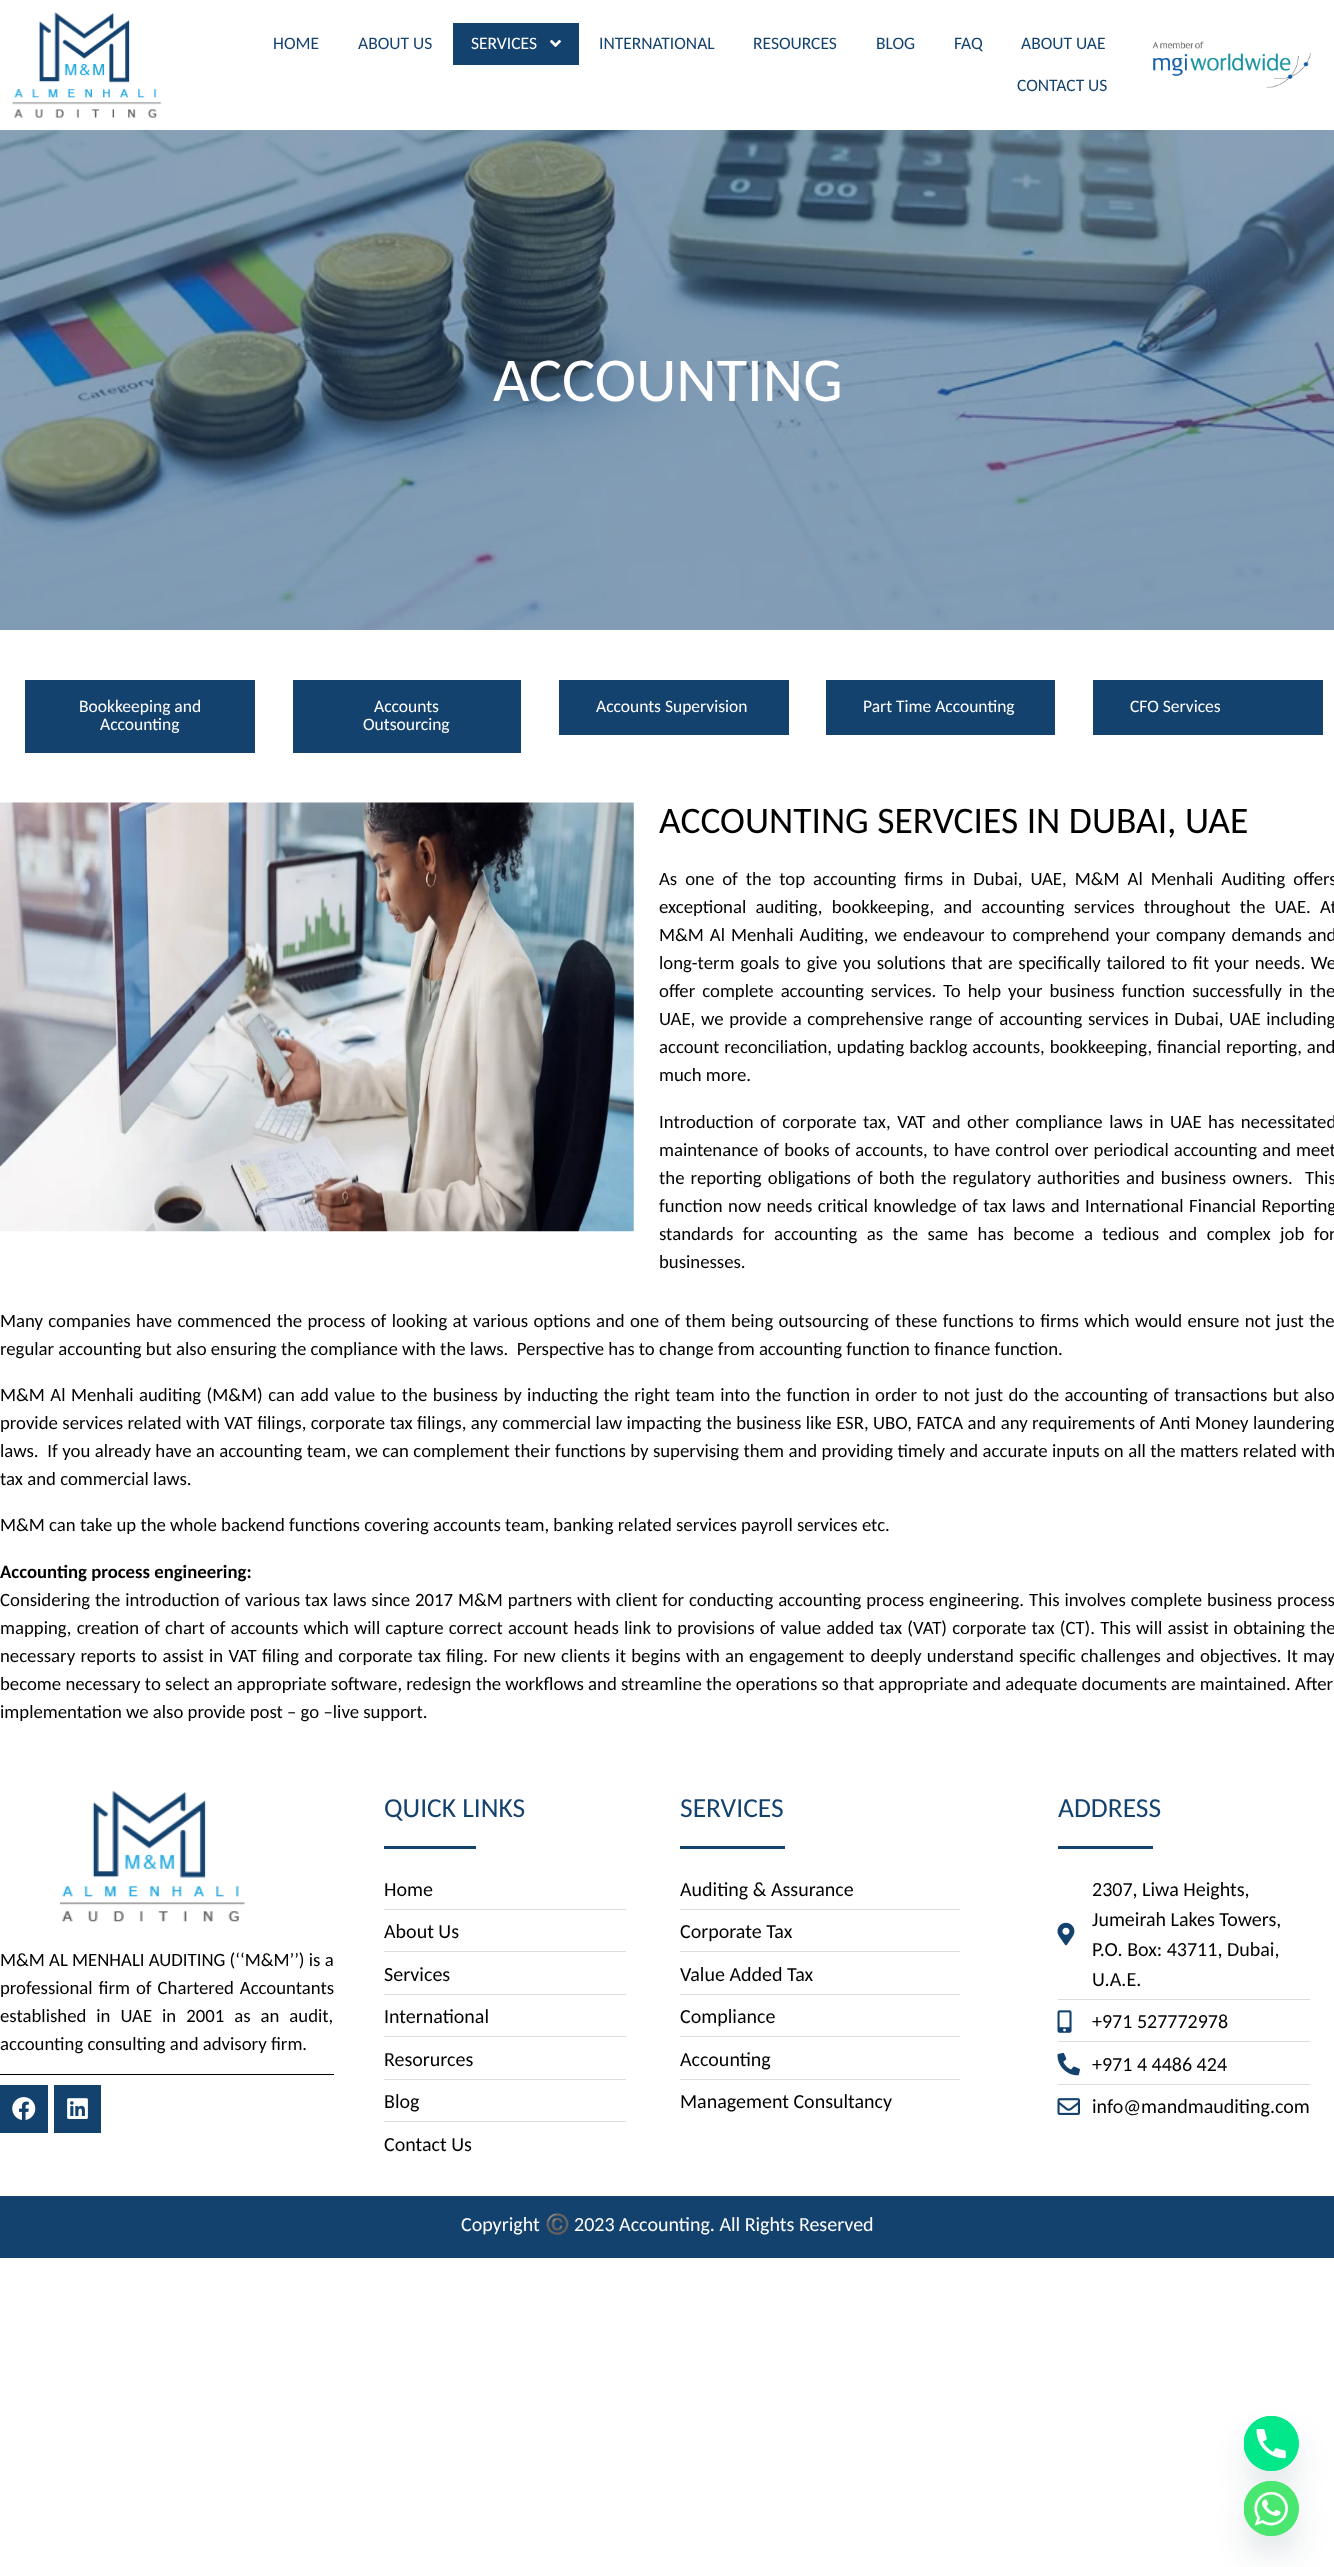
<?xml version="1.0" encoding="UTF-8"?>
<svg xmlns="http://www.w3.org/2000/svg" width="1334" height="2567">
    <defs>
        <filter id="blur1" x="-50%" y="-200%" width="200%" height="500%"><feGaussianBlur stdDeviation="15"/></filter>
    </defs>
    <rect width="100%" height="100%" fill="#FFFFFF"/>
    <image x="12" y="12" width="150" height="106" href="img_01.png"/>
    <text x="273" y="49" font-family="Carlito" font-size="17.5" fill="#14426F">HOME</text>
    <text x="358" y="49" font-family="Carlito" font-size="17.5" fill="#14426F">ABOUT US</text>
    <rect x="453" y="23" width="126" height="42" fill="#14426F"/>
    <text x="471" y="49" font-family="Carlito" font-size="17.5" fill="#FFFFFF">SERVICES</text>
    <image x="550" y="40" width="11" height="7" href="img_02.png"/>
    <text x="599" y="49" font-family="Carlito" font-size="17.5" fill="#14426F">INTERNATIONAL</text>
    <text x="753" y="49" font-family="Carlito" font-size="17.5" fill="#14426F">RESOURCES</text>
    <text x="876" y="49" font-family="Carlito" font-size="17.5" fill="#14426F">BLOG</text>
    <text x="954" y="49" font-family="Carlito" font-size="17.5" fill="#14426F">FAQ</text>
    <text x="1021" y="49" font-family="Carlito" font-size="17.5" fill="#14426F">ABOUT UAE</text>
    <text x="1017" y="91" font-family="Carlito" font-size="17.5" fill="#14426F">CONTACT US</text>
    <image x="1152" y="41" width="159" height="47" href="img_03.png"/>
    <image x="0" y="130" width="1334" height="500" href="img_04.png"/>
    <text x="493" y="401" font-family="Carlito" font-size="62.5" fill="#FFFFFF">ACCOUNTING</text>
    <rect x="25" y="680" width="230" height="73" fill="#14426F"/>
    <text x="79" y="712" font-family="Carlito" font-size="17.5" fill="#FFFFFF">Bookkeeping and</text>
    <text x="100" y="730" font-family="Carlito" font-size="17.5" fill="#FFFFFF">Accounting</text>
    <rect x="293" y="680" width="228" height="73" fill="#14426F"/>
    <text x="374" y="712" font-family="Carlito" font-size="17.5" fill="#FFFFFF">Accounts</text>
    <text x="363" y="730" font-family="Carlito" font-size="17.5" fill="#FFFFFF">Outsourcing</text>
    <rect x="559" y="680" width="230" height="55" fill="#14426F"/>
    <text x="596" y="712" font-family="Carlito" font-size="17.5" fill="#FFFFFF">Accounts Supervision</text>
    <rect x="826" y="680" width="229" height="55" fill="#14426F"/>
    <text x="863" y="712" font-family="Carlito" font-size="17.5" fill="#FFFFFF">Part Time Accounting</text>
    <rect x="1093" y="680" width="230" height="55" fill="#14426F"/>
    <text x="1130" y="712" font-family="Carlito" font-size="17.5" fill="#FFFFFF">CFO Services</text>
    <image x="0" y="802" width="634" height="430" href="img_05.png"/>
    <text x="659" y="833" font-family="Carlito" font-size="37.5" fill="#000000">ACCOUNTING SERVCIES IN DUBAI, UAE</text>
    <text font-family="Carlito" font-size="18.75" fill="#000000">
        <tspan x="659" y="885" word-spacing="3.75">As one of the top accounting firms in Dubai, UAE, M&amp;M Al Menhali Auditing offers</tspan>
        <tspan x="659" y="913" word-spacing="5">exceptional auditing, bookkeeping, and accounting services throughout the UAE. At</tspan>
        <tspan x="659" y="941" word-spacing="1.75">M&amp;M Al Menhali Auditing, we endeavour to comprehend your company demands and</tspan>
        <tspan x="659" y="969" word-spacing="1.4">long-term goals to give you solutions that are specifically tailored to fit your needs. We</tspan>
        <tspan x="659" y="997" word-spacing="2.75">offer complete accounting services. To help your business function successfully in the</tspan>
        <tspan x="659" y="1025" word-spacing="1.4">UAE, we provide a comprehensive range of accounting services in Dubai, UAE including</tspan>
        <tspan x="659" y="1053" word-spacing="0.65">account reconciliation, updating backlog accounts, bookkeeping, financial reporting, and</tspan>
        <tspan x="659" y="1081">much more.</tspan>
    </text>
    <text font-family="Carlito" font-size="18.75" fill="#000000" xml:space="preserve"><tspan x="659" y="1128" word-spacing="2.25">Introduction of corporate tax, VAT and other compliance laws in UAE has necessitated</tspan><tspan x="659" y="1156" word-spacing="0.9">maintenance of books of accounts, to have control over periodical accounting and meet</tspan><tspan x="659" y="1184" word-spacing="1.9">the reporting obligations of both the regulatory authorities and business owners.  This</tspan><tspan x="659" y="1212" word-spacing="1.25">function now needs critical knowledge of tax laws and International Financial Reporting</tspan><tspan x="659" y="1240" word-spacing="5.25">standards for accounting as the same has become a tedious and complex job for</tspan><tspan x="659" y="1268">businesses.</tspan></text>
    <text font-family="Carlito" font-size="18.75" fill="#000000" xml:space="preserve"><tspan x="0" y="1327" word-spacing="1.1">Many companies have commenced the process of looking at various options and one of them being outsourcing of these functions to firms which would ensure not just the</tspan><tspan x="0" y="1355">regular accounting but also ensuring the compliance with the laws.  Perspective has to change from accounting function to finance function.</tspan></text>
    <text font-family="Carlito" font-size="18.75" fill="#000000" xml:space="preserve"><tspan x="0" y="1401" word-spacing="1.2">M&amp;M Al Menhali auditing (M&amp;M) can add value to the business by inducting the right team into the function in order to not just do the accounting of transactions but also</tspan><tspan x="0" y="1429" word-spacing="0.25">provide services related with VAT filings, corporate tax filings, any commercial law impacting the business like ESR, UBO, FATCA and any requirements of Anti Money laundering</tspan><tspan x="0" y="1457" word-spacing="0.2">laws.  If you already have an accounting team, we can complement their functions by supervising them and providing timely and accurate inputs on all the matters related with</tspan><tspan x="0" y="1485">tax and commercial laws.</tspan></text>
    <text x="0" y="1531" font-family="Carlito" font-size="18.75" fill="#000000">M&amp;M can take up the whole backend functions covering accounts team, banking related services payroll services etc.</text>
    <text x="0" y="1578" font-family="Carlito" font-size="18.75" font-weight="700" fill="#000000">Accounting process engineering:</text>
    <text font-family="Carlito" font-size="18.75" fill="#000000">
        <tspan x="0" y="1606" word-spacing="0.65">Considering the introduction of various tax laws since 2017 M&amp;M partners with client for conducting accounting process engineering. This involves complete business process</tspan>
        <tspan x="0" y="1634" word-spacing="0.9">mapping, creation of chart of accounts which will capture correct account heads link to provisions of value added tax (VAT) corporate tax (CT). This will assist in obtaining the</tspan>
        <tspan x="0" y="1662" word-spacing="1">necessary reports to assist in VAT filing and corporate tax filing. For new clients it begins with an engagement to deeply understand specific challenges and objectives. It may</tspan>
        <tspan x="0" y="1690">become necessary to select an appropriate software, redesign the workflows and streamline the operations so that appropriate and adequate documents are maintained. After</tspan>
        <tspan x="0" y="1718">implementation we also provide post – go –live support.</tspan>
    </text>
    <image x="60" y="1791" width="185" height="131" href="img_06.png"/>
    <text font-family="Carlito" font-size="18.75" fill="#000000">
        <tspan x="0" y="1966">M&amp;M AL MENHALI AUDITING (‘‘M&amp;M’’) is a</tspan>
        <tspan x="0" y="1994" word-spacing="1.75">professional firm of Chartered Accountants</tspan>
        <tspan x="0" y="2022" word-spacing="5.75">established in UAE in 2001 as an audit,</tspan>
        <tspan x="0" y="2050">accounting consulting and advisory firm.</tspan>
    </text>
    <rect x="0" y="2074" width="334" height="1" fill="#000000"/>
    <rect x="0" y="2085" width="48" height="48" fill="#14426F"/>
    <image x="12" y="2097" width="24" height="23" href="img_07.png"/>
    <rect x="54" y="2085" width="47" height="48" fill="#14426F"/>
    <image x="67" y="2098" width="21" height="21" href="img_08.png"/>
    <text x="384" y="1817" font-family="Carlito" font-size="27.5" fill="#14426F">QUICK LINKS</text>
    <rect x="384" y="1846" width="92" height="3" fill="#14426F"/>
    <text x="384" y="1896" font-family="Carlito" font-size="20" fill="#000000">Home</text>
    <rect x="384" y="1909" width="242" height="1" fill="#DDDDDD"/>
    <text x="384" y="1938" font-family="Carlito" font-size="20" fill="#000000">About Us</text>
    <rect x="384" y="1951" width="242" height="1" fill="#DDDDDD"/>
    <text x="384" y="1981" font-family="Carlito" font-size="20" fill="#000000">Services</text>
    <rect x="384" y="1994" width="242" height="1" fill="#DDDDDD"/>
    <text x="384" y="2023" font-family="Carlito" font-size="20" fill="#000000">International</text>
    <rect x="384" y="2036" width="242" height="1" fill="#DDDDDD"/>
    <text x="384" y="2066" font-family="Carlito" font-size="20" fill="#000000">Resorurces</text>
    <rect x="384" y="2079" width="242" height="1" fill="#DDDDDD"/>
    <text x="384" y="2108" font-family="Carlito" font-size="20" fill="#000000">Blog</text>
    <rect x="384" y="2121" width="242" height="1" fill="#DDDDDD"/>
    <text x="384" y="2151" font-family="Carlito" font-size="20" fill="#000000">Contact Us</text>
    <text x="680" y="1817" font-family="Carlito" font-size="27.5" fill="#14426F">SERVICES</text>
    <rect x="680" y="1846" width="105" height="3" fill="#14426F"/>
    <text x="680" y="1896" font-family="Carlito" font-size="20" fill="#000000">Auditing &amp; Assurance</text>
    <rect x="680" y="1909" width="280" height="1" fill="#DDDDDD"/>
    <text x="680" y="1938" font-family="Carlito" font-size="20" fill="#000000">Corporate Tax</text>
    <rect x="680" y="1951" width="280" height="1" fill="#DDDDDD"/>
    <text x="680" y="1981" font-family="Carlito" font-size="20" fill="#000000">Value Added Tax</text>
    <rect x="680" y="1994" width="280" height="1" fill="#DDDDDD"/>
    <text x="680" y="2023" font-family="Carlito" font-size="20" fill="#000000">Compliance</text>
    <rect x="680" y="2036" width="280" height="1" fill="#DDDDDD"/>
    <text x="680" y="2066" font-family="Carlito" font-size="20" fill="#000000">Accounting</text>
    <rect x="680" y="2079" width="280" height="1" fill="#DDDDDD"/>
    <text x="680" y="2108" font-family="Carlito" font-size="20" fill="#000000">Management Consultancy</text>
    <text x="1058" y="1817" font-family="Carlito" font-size="27.5" fill="#14426F">ADDRESS</text>
    <rect x="1058" y="1846" width="95" height="3" fill="#14426F"/>
    <image x="1057" y="1922" width="18" height="24" href="img_09.png"/>
    <text font-family="Carlito" font-size="20" fill="#000000">
        <tspan x="1092" y="1896">2307, Liwa Heights,</tspan>
        <tspan x="1092" y="1926">Jumeirah Lakes Towers,</tspan>
        <tspan x="1092" y="1956">P.O. Box: 43711, Dubai,</tspan>
        <tspan x="1092" y="1986">U.A.E.</tspan>
    </text>
    <rect x="1058" y="1999" width="252" height="1" fill="#DDDDDD"/>
    <image x="1057" y="2010" width="15" height="23" href="img_10.png"/>
    <text x="1092" y="2028" font-family="Carlito" font-size="20" fill="#000000">+971 527772978</text>
    <rect x="1058" y="2041" width="252" height="1" fill="#DDDDDD"/>
    <image x="1057" y="2052" width="23" height="24" href="img_11.png"/>
    <text x="1092" y="2071" font-family="Carlito" font-size="20" fill="#000000">+971 4 4486 424</text>
    <rect x="1058" y="2084" width="252" height="1" fill="#DDDDDD"/>
    <image x="1057" y="2098" width="23" height="17" href="img_12.png"/>
    <text x="1092" y="2113" font-family="Carlito" font-size="20" fill="#000000">info@mandmauditing.com</text>
    <rect x="0" y="2196" width="1334" height="62" fill="#14426F"/>
    <text x="461" y="2231" font-family="Carlito" font-size="20" fill="#FFFFFF">Copyright</text>
    <text x="545" y="2231" font-family="Noto Color Emoji" font-size="20" fill="#FFFFFF">©️</text>
    <text x="574" y="2231" font-family="Carlito" font-size="20" fill="#FFFFFF">2023 Accounting. All Rights Reserved</text>
    <rect x="1244" y="2436" width="55" height="55" rx="27.5" fill="#49687E" fill-opacity="0.16" filter="url(#blur1)"/>
    <circle cx="1271.5" cy="2443.5" r="27.5" fill="#03E78B"/>
    <image x="1244" y="2416" width="55" height="55" href="img_13.png"/>
    <rect x="1244" y="2501" width="55" height="55" rx="27.5" fill="#49687E" fill-opacity="0.16" filter="url(#blur1)"/>
    <circle cx="1271.5" cy="2508.5" r="27.5" fill="#49E670"/>
    <image x="1244" y="2481" width="55" height="55" href="img_14.png"/>
</svg>
